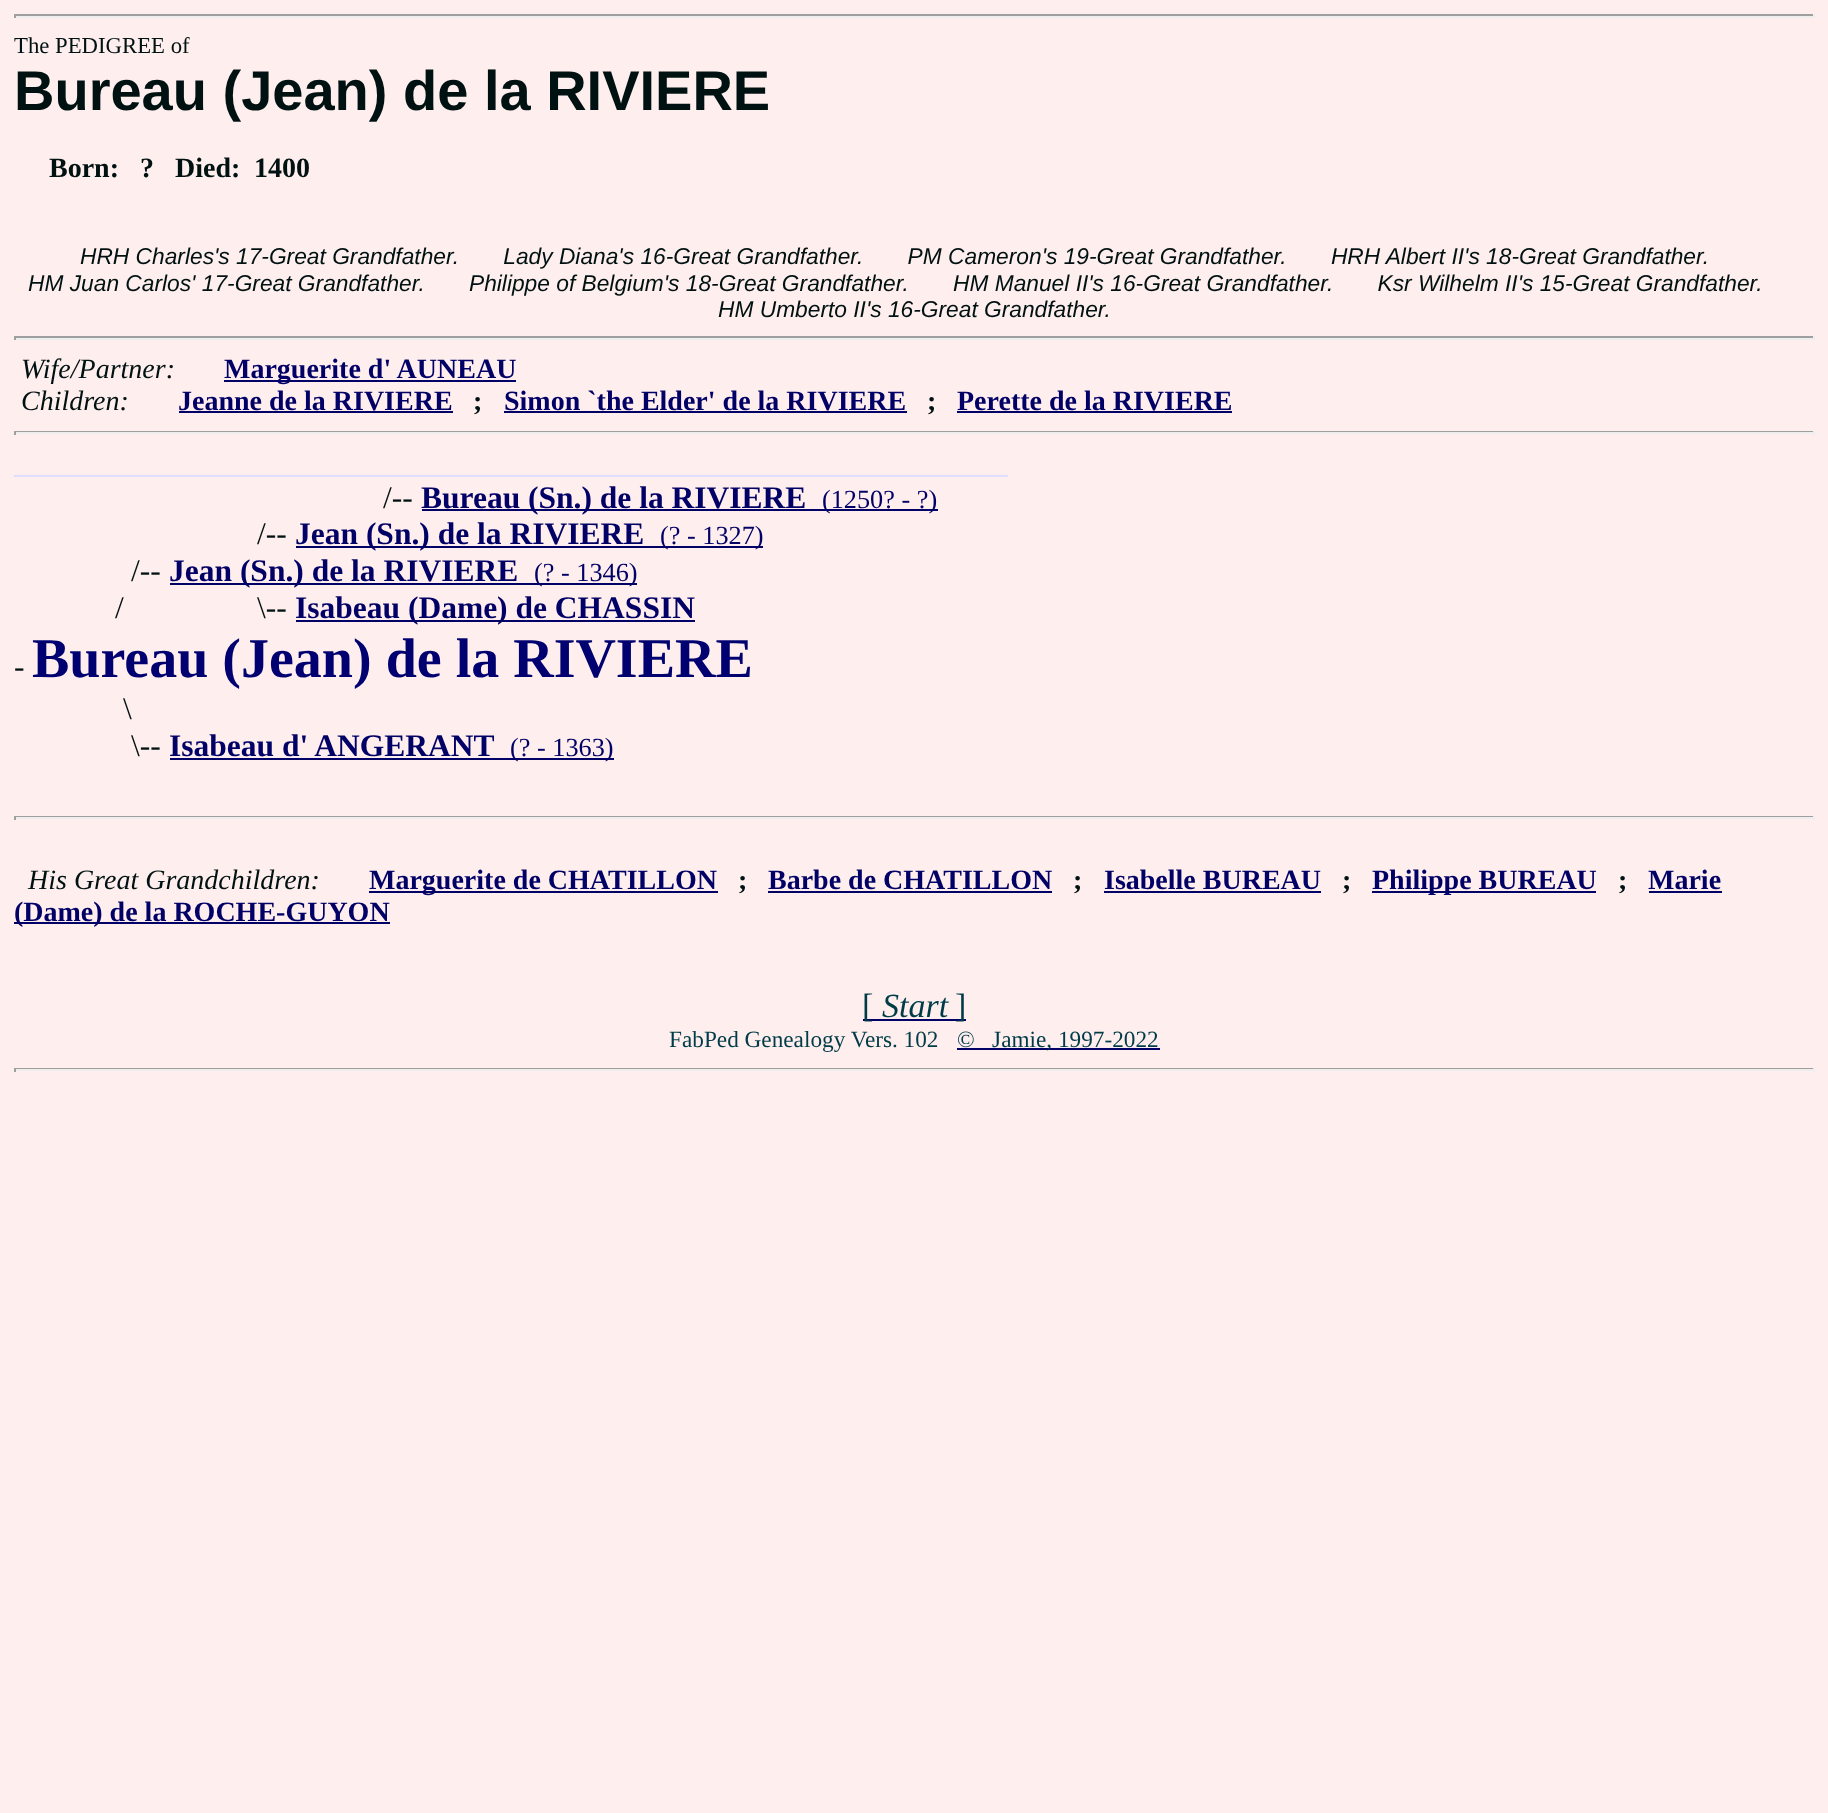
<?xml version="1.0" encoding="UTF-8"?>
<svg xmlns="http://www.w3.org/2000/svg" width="1828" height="1813">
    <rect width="100%" height="100%" fill="#FFEEEE"/>
    <rect x="14" y="14" width="1801" height="2" fill="#9F9F9F"/>
    <rect x="1813" y="14" width="2" height="4" fill="#EEEEEE"/>
    <rect x="14" y="16" width="1801" height="2" fill="#EEEEEE"/>
    <rect x="14" y="14" width="2" height="4" fill="#9F9F9F"/>
    <text x="14" y="53" font-family="Liberation Serif" font-size="22.75" fill="#001111">The PEDIGREE of</text>
    <text x="14" y="110" font-family="Liberation Sans" font-size="56" font-weight="700" fill="#001111">Bureau (Jean) de la RIVIERE</text>
    <text x="49" y="177" font-family="Liberation Serif" font-size="28" font-weight="700" fill="#001111">Born:</text>
    <text x="140" y="177" font-family="Liberation Serif" font-size="28" font-weight="700" fill="#001111" xml:space="preserve">?   Died:</text>
    <text x="254" y="177" font-family="Liberation Serif" font-size="28" font-weight="700" fill="#001111">1400</text>
    <text x="80" y="264" font-family="Liberation Sans" font-size="22.75" font-style="italic" fill="#001111" xml:space="preserve">HRH Charles's 17-Great Grandfather.       Lady Diana's 16-Great Grandfather.       PM Cameron's 19-Great Grandfather.       HRH Albert II's 18-Great Grandfather.</text>
    <text x="28" y="291" font-family="Liberation Sans" font-size="22.75" font-style="italic" fill="#001111" xml:space="preserve">HM Juan Carlos' 17-Great Grandfather.       Philippe of Belgium's 18-Great Grandfather.       HM Manuel II's 16-Great Grandfather.       Ksr Wilhelm II's 15-Great Grandfather.</text>
    <text x="718" y="317" font-family="Liberation Sans" font-size="22.75" font-style="italic" fill="#001111">HM Umberto II's 16-Great Grandfather.</text>
    <rect x="14" y="336" width="1801" height="2" fill="#9F9F9F"/>
    <rect x="1813" y="336" width="2" height="4" fill="#EEEEEE"/>
    <rect x="14" y="338" width="1801" height="2" fill="#EEEEEE"/>
    <rect x="14" y="336" width="2" height="4" fill="#9F9F9F"/>
    <text x="21" y="378" font-family="Liberation Serif" font-size="28" font-style="italic" fill="#001111">Wife/Partner:</text>
    <rect x="224" y="380" width="292" height="2" fill="#000066"/>
    <text x="224" y="378" font-family="Liberation Serif" font-size="28" font-weight="700" fill="#000066">Marguerite d' AUNEAU</text>
    <text x="21" y="410" font-family="Liberation Serif" font-size="28" font-style="italic" fill="#001111">Children:</text>
    <text x="178" y="410" font-family="Liberation Serif" font-size="28" font-weight="700" fill="#000066">Jeanne de la RIVIERE</text>
    <rect x="179" y="411" width="274" height="2" fill="#000066"/>
    <text x="473" y="410" font-family="Liberation Serif" font-size="28" font-weight="700" fill="#001111">;</text>
    <text x="504" y="410" font-family="Liberation Serif" font-size="28" font-weight="700" fill="#000066">Simon `the Elder' de la RIVIERE</text>
    <rect x="504" y="411" width="403" height="2" fill="#000066"/>
    <text x="927" y="410" font-family="Liberation Serif" font-size="28" font-weight="700" fill="#001111">;</text>
    <text x="957" y="410" font-family="Liberation Serif" font-size="28" font-weight="700" fill="#000066">Perette de la RIVIERE</text>
    <rect x="957" y="411" width="275" height="2" fill="#000066"/>
    <rect x="14" y="431" width="1801" height="1" fill="#9F9F9F"/>
    <rect x="1813" y="431" width="2" height="4" fill="#EEEEEE"/>
    <rect x="14" y="432" width="1801" height="2" fill="#EEEEEE"/>
    <rect x="14" y="431" width="2" height="4" fill="#9F9F9F"/>
    <text x="14" y="473" font-family="Liberation Serif" font-size="28" font-weight="700" fill="#DDDDFF">_______________________________________________________________________</text>
    <text x="383" y="508" font-family="Liberation Serif" font-size="31.5" fill="#001111">/--</text>
    <rect x="422" y="509" width="516" height="2" fill="#000066"/>
    <text x="421" y="508" font-family="Liberation Serif" font-size="31.5" font-weight="700" fill="#000066">Bureau (Sn.) de la RIVIERE</text>
    <text x="822" y="508" font-family="Liberation Serif" font-size="26.25" fill="#000066">(1250? - ?)</text>
    <text x="257" y="544" font-family="Liberation Serif" font-size="31.5" fill="#001111">/--</text>
    <rect x="296" y="546" width="467" height="2" fill="#000066"/>
    <text x="295" y="544" font-family="Liberation Serif" font-size="31.5" font-weight="700" fill="#000066">Jean (Sn.) de la RIVIERE</text>
    <text x="660" y="544" font-family="Liberation Serif" font-size="26.25" fill="#000066">(? - 1327)</text>
    <text x="131" y="581" font-family="Liberation Serif" font-size="31.5" fill="#001111">/--</text>
    <rect x="170" y="583" width="467" height="2" fill="#000066"/>
    <text x="169" y="581" font-family="Liberation Serif" font-size="31.5" font-weight="700" fill="#000066">Jean (Sn.) de la RIVIERE</text>
    <text x="534" y="581" font-family="Liberation Serif" font-size="26.25" fill="#000066">(? - 1346)</text>
    <text x="115" y="618" font-family="Liberation Serif" font-size="31.5" fill="#001111">/</text>
    <text x="257" y="618" font-family="Liberation Serif" font-size="31.5" fill="#001111">\--</text>
    <rect x="296" y="620" width="399" height="2" fill="#000066"/>
    <text x="295" y="618" font-family="Liberation Serif" font-size="31.5" font-weight="700" fill="#000066">Isabeau (Dame) de CHASSIN</text>
    <text x="14" y="677" font-family="Liberation Serif" font-size="31.5" fill="#001111">-</text>
    <text x="32" y="677" font-family="Liberation Serif" font-size="56" font-weight="700" fill="#000070">Bureau (Jean) de la RIVIERE</text>
    <text x="123" y="719" font-family="Liberation Serif" font-size="31.5" fill="#001111">\</text>
    <text x="131" y="756" font-family="Liberation Serif" font-size="31.5" fill="#001111">\--</text>
    <text x="169" y="756" font-family="Liberation Serif" font-size="31.5" font-weight="700" fill="#000066">Isabeau d' ANGERANT</text>
    <rect x="170" y="758" width="444" height="2" fill="#000066"/>
    <text x="510" y="756" font-family="Liberation Serif" font-size="26.25" fill="#000066">(? - 1363)</text>
    <rect x="14" y="816" width="1801" height="1" fill="#9F9F9F"/>
    <rect x="1813" y="816" width="2" height="4" fill="#EEEEEE"/>
    <rect x="14" y="817" width="1801" height="2" fill="#EEEEEE"/>
    <rect x="14" y="816" width="2" height="4" fill="#9F9F9F"/>
    <text x="28" y="889" font-family="Liberation Serif" font-size="28" font-style="italic" fill="#001111">His Great Grandchildren:</text>
    <rect x="369" y="891" width="349" height="2" fill="#000066"/>
    <text x="369" y="889" font-family="Liberation Serif" font-size="28" font-weight="700" fill="#000066">Marguerite de CHATILLON</text>
    <text x="738" y="889" font-family="Liberation Serif" font-size="28" font-weight="700" fill="#001111">;</text>
    <text x="768" y="889" font-family="Liberation Serif" font-size="28" font-weight="700" fill="#000066">Barbe de CHATILLON</text>
    <rect x="768" y="891" width="284" height="2" fill="#000066"/>
    <text x="1073" y="889" font-family="Liberation Serif" font-size="28" font-weight="700" fill="#001111">;</text>
    <text x="1104" y="889" font-family="Liberation Serif" font-size="28" font-weight="700" fill="#000066">Isabelle BUREAU</text>
    <rect x="1104" y="891" width="217" height="2" fill="#000066"/>
    <text x="1342" y="889" font-family="Liberation Serif" font-size="28" font-weight="700" fill="#001111">;</text>
    <rect x="1372" y="891" width="224" height="2" fill="#000066"/>
    <text x="1372" y="889" font-family="Liberation Serif" font-size="28" font-weight="700" fill="#000066">Philippe BUREAU</text>
    <text x="1618" y="889" font-family="Liberation Serif" font-size="28" font-weight="700" fill="#001111">;</text>
    <text x="1648" y="889" font-family="Liberation Serif" font-size="28" font-weight="700" fill="#000066">Marie</text>
    <rect x="1649" y="891" width="73" height="2" fill="#000066"/>
    <rect x="14" y="922" width="376" height="2" fill="#000066"/>
    <text x="14" y="921" font-family="Liberation Serif" font-size="28" font-weight="700" fill="#000066">(Dame) de la ROCHE-GUYON</text>
    <rect x="863" y="1019" width="103" height="2" fill="#000066"/>
    <text x="862" y="1017" font-family="Liberation Serif" font-size="34" fill="#003C48">[</text>
    <text x="882" y="1017" font-family="Liberation Serif" font-size="34" font-style="italic" fill="#003C48">Start</text>
    <text x="955" y="1017" font-family="Liberation Serif" font-size="34" fill="#003C48">]</text>
    <text x="669" y="1047" font-family="Liberation Serif" font-size="23.25" fill="#003C48">FabPed Genealogy Vers. 102</text>
    <rect x="957" y="1048" width="203" height="2" fill="#000066"/>
    <text x="957" y="1047" font-family="Liberation Serif" font-size="23.25" fill="#003C48" xml:space="preserve">©   Jamie, 1997-2022</text>
    <rect x="14" y="1068" width="1801" height="1" fill="#9F9F9F"/>
    <rect x="1813" y="1068" width="2" height="4" fill="#EEEEEE"/>
    <rect x="14" y="1069" width="1801" height="2" fill="#EEEEEE"/>
    <rect x="14" y="1068" width="2" height="4" fill="#9F9F9F"/>
</svg>
